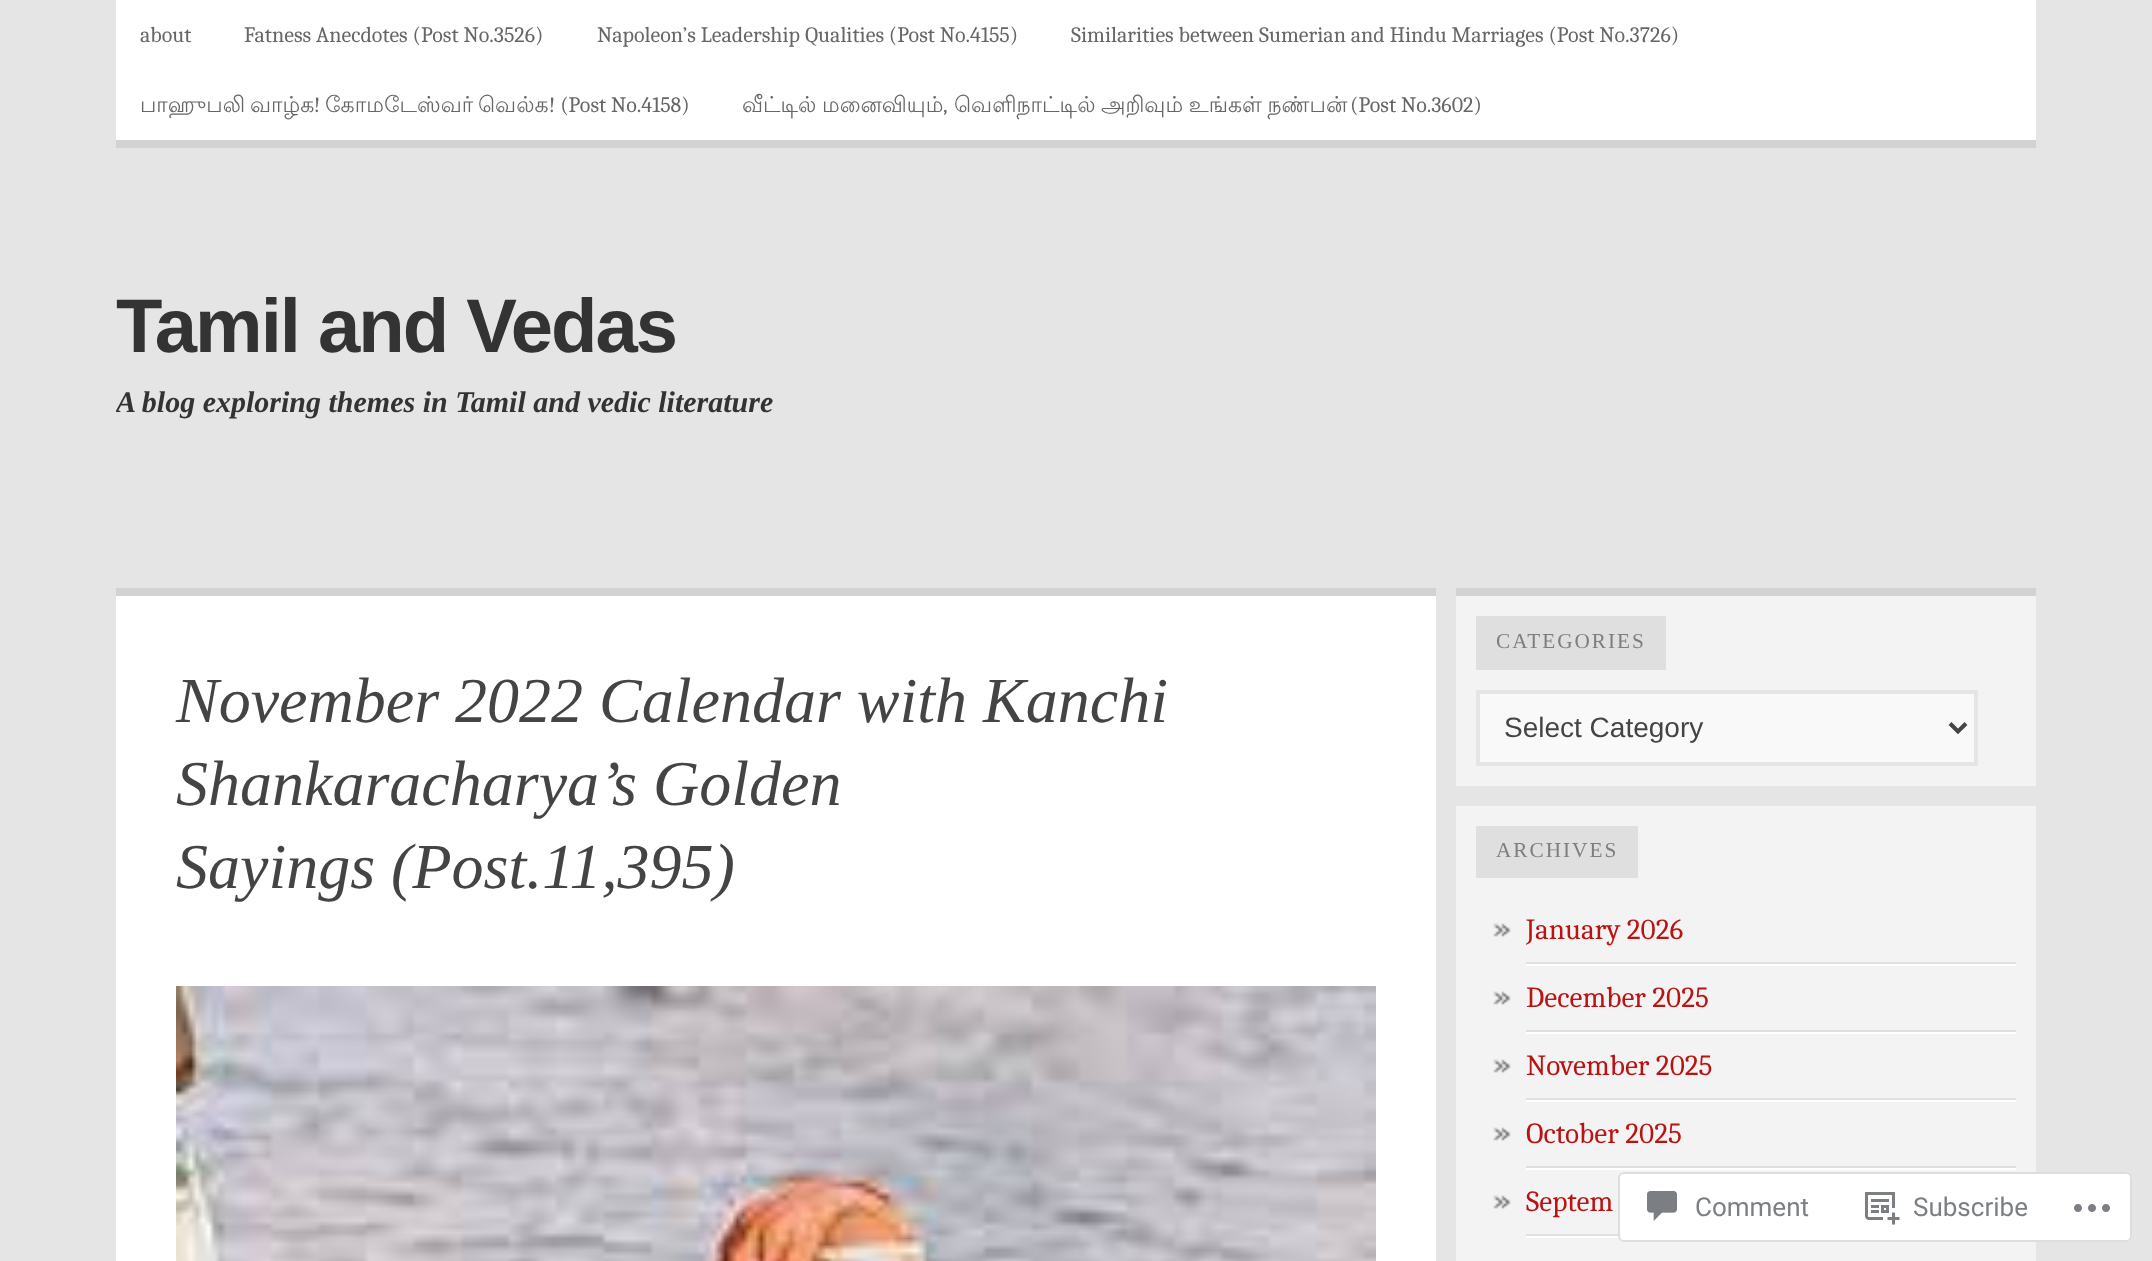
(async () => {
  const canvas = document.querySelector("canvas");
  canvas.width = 2152;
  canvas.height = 1261;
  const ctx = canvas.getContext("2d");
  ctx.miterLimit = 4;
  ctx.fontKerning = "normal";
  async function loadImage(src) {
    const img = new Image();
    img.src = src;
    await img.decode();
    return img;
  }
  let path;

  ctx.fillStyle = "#e5e5e5";
  ctx.fillRect(0, 0, 2152, 1261);
  for (const [x, y, w, h, color] of [
    [116, 0, 1920, 140, "#ffffff"],
    [116, 140, 1920, 8, "#d2d2d2"],
    [116, 596, 1320, 665, "#ffffff"],
    [116, 588, 1320, 8, "#d2d2d2"],
  ]) {
    ctx.fillStyle = color;
    ctx.fillRect(x, y, w, h);
  }
  ctx.drawImage(await loadImage("img/1.png"), 176, 986, 1200, 275);
  for (const [x, y, w, h, color] of [
    [1456, 588, 580, 8, "#d2d2d2"],
    [1456, 596, 580, 190, "#f3f3f3"],
    [1476, 616, 190, 54, "#dfdfdf"],
  ]) {
    ctx.fillStyle = color;
    ctx.fillRect(x, y, w, h);
  }
  ctx.fillStyle = "#f9f9f9";
  ctx.beginPath();
  ctx.rect(1478, 692, 498, 72);
  ctx.fill();
  ctx.strokeStyle = "#e5e5e5";
  ctx.lineWidth = 4;
  ctx.stroke();
  path = new Path2D("M1950 723.5L1958 731.5L1966 723.5");
  ctx.strokeStyle = "#444444";
  ctx.stroke(path);
  for (const [x, y, w, h, color] of [
    [1456, 806, 580, 455, "#f3f3f3"],
    [1476, 826, 162, 52, "#dfdfdf"],
    [1526, 962, 490, 2, "#dfdfdf"],
  ]) {
    ctx.fillStyle = color;
    ctx.fillRect(x, y, w, h);
  }
  ctx.drawImage(await loadImage("img/2.png"), 1493, 923, 18, 14);
  ctx.fillStyle = "#ffffff";
  ctx.fillRect(1526, 964, 490, 2);
  ctx.fillStyle = "#dfdfdf";
  ctx.fillRect(1526, 1030, 490, 2);
  ctx.drawImage(await loadImage("img/2.png"), 1493, 991, 18, 14);
  ctx.fillStyle = "#ffffff";
  ctx.fillRect(1526, 1032, 490, 2);
  ctx.fillStyle = "#dfdfdf";
  ctx.fillRect(1526, 1098, 490, 2);
  ctx.drawImage(await loadImage("img/2.png"), 1493, 1059, 18, 14);
  ctx.fillStyle = "#ffffff";
  ctx.fillRect(1526, 1100, 490, 2);
  ctx.fillStyle = "#dfdfdf";
  ctx.fillRect(1526, 1166, 490, 2);
  ctx.drawImage(await loadImage("img/2.png"), 1493, 1127, 18, 14);
  ctx.fillStyle = "#ffffff";
  ctx.fillRect(1526, 1168, 490, 2);
  ctx.fillStyle = "#dfdfdf";
  ctx.fillRect(1526, 1234, 490, 2);
  ctx.drawImage(await loadImage("img/2.png"), 1493, 1195, 18, 14);
  ctx.fillStyle = "#ffffff";
  ctx.fillRect(1526, 1236, 490, 2);
  ctx.fillStyle = "rgba(255, 255, 255, 0.98)";
  ctx.beginPath();
  ctx.roundRect(1618, 1172, 514, 70, 6);
  ctx.fill();
  ctx.beginPath();
  ctx.roundRect(1619, 1173, 512, 68, 5);
  ctx.strokeStyle = "rgba(220, 220, 222, 0.98)";
  ctx.lineWidth = 2;
  ctx.stroke();
  ctx.drawImage(await loadImage("img/3.png"), 1647, 1191, 30, 30);
  ctx.drawImage(await loadImage("img/4.png"), 1865, 1192, 35, 33);
  ctx.drawImage(await loadImage("img/5.png"), 2074, 1204, 36, 8);
  ctx.font = "22px Caladea";
  ctx.fillStyle = "#666666";
  for (const [text, x, y] of [
    ["about", 140, 42],
    ["Fatness Anecdotes (Post No.3526)", 244, 42],
    ["Napoleon’s Leadership Qualities (Post No.4155)", 597, 42],
    ["Similarities between Sumerian and Hindu Marriages (Post No.3726)", 1071, 42],
  ]) {
    ctx.fillText(text, x, y);
  }
  ctx.font = "22px Lohit Tamil";
  ctx.fillText("பாஹுபலி", 140, 112);
  ctx.fillText("வாழ்க", 250, 112);
  ctx.font = "22px Caladea";
  ctx.fillText("!", 314, 112);
  ctx.font = "22px Lohit Tamil";
  ctx.fillText("கோமடேஸ்வர்", 325, 112);
  ctx.fillText("வெல்க", 478, 112);
  ctx.font = "22px Caladea";
  ctx.fillText("! (Post No.4158)", 549, 112);
  ctx.wordSpacing = "-1px";
  ctx.font = "22px Lohit Tamil";
  ctx.fillText("வீட்டில் மனைவியும்", 742, 112);
  ctx.wordSpacing = "0px";
  ctx.font = "22px Caladea";
  ctx.fillText(",", 943, 112);
  ctx.wordSpacing = "-1px";
  ctx.font = "22px Lohit Tamil";
  ctx.fillText("வெளிநாட்டில் அறிவும் உங்கள் நண்பன்", 954, 112);
  ctx.wordSpacing = "0px";
  ctx.font = "22px Caladea";
  ctx.fillText("(Post No.3602)", 1350, 112);
  ctx.letterSpacing = "-2px";
  ctx.font = "bold 76px Liberation Sans";
  ctx.fillStyle = "#333333";
  ctx.fillText("Tamil and Vedas", 116, 352);
  ctx.save();
  ctx.beginPath();
  ctx.rect(116, 168, 1920, 400);
  ctx.clip();
  ctx.letterSpacing = "0px";
  ctx.font = "italic bold 30px Liberation Serif";
  ctx.fillText("A blog exploring themes in Tamil and vedic literature", 116, 412);
  ctx.restore();
  ctx.letterSpacing = "0px";
  ctx.font = "italic 64px Liberation Serif";
  ctx.fillStyle = "#444444";
  for (const [text, x, y] of [
    ["November 2022 Calendar with Kanchi", 176, 722],
    ["Shankaracharya’s Golden", 176, 805],
    ["Sayings (Post.11,395)", 176, 888],
  ]) {
    ctx.fillText(text, x, y);
  }
  ctx.letterSpacing = "2px";
  ctx.font = "21.25px Liberation Serif";
  ctx.fillStyle = "#7e7e7e";
  ctx.fillText("CATEGORIES", 1496, 648);
  ctx.letterSpacing = "0px";
  ctx.font = "28px Liberation Sans";
  ctx.fillStyle = "#444444";
  ctx.fillText("Select Category", 1504, 737);
  ctx.letterSpacing = "2px";
  ctx.font = "21.25px Liberation Serif";
  ctx.fillStyle = "#7e7e7e";
  ctx.fillText("ARCHIVES", 1496, 857);
  ctx.letterSpacing = "0px";
  ctx.font = "29.25px Caladea";
  ctx.fillStyle = "#b91313";
  for (const [text, x, y] of [
    ["January 2026", 1526, 939],
    ["December 2025", 1526, 1007],
    ["November 2025", 1526, 1075],
    ["October 2025", 1526, 1143],
    ["Septem", 1526, 1211],
  ]) {
    ctx.fillText(text, x, y);
  }
  ctx.font = "26px Roboto";
  ctx.fillStyle = "#7b7f84";
  ctx.fillText("Comment", 1695, 1216);
  ctx.fillText("Subscribe", 1913, 1216);
})();
